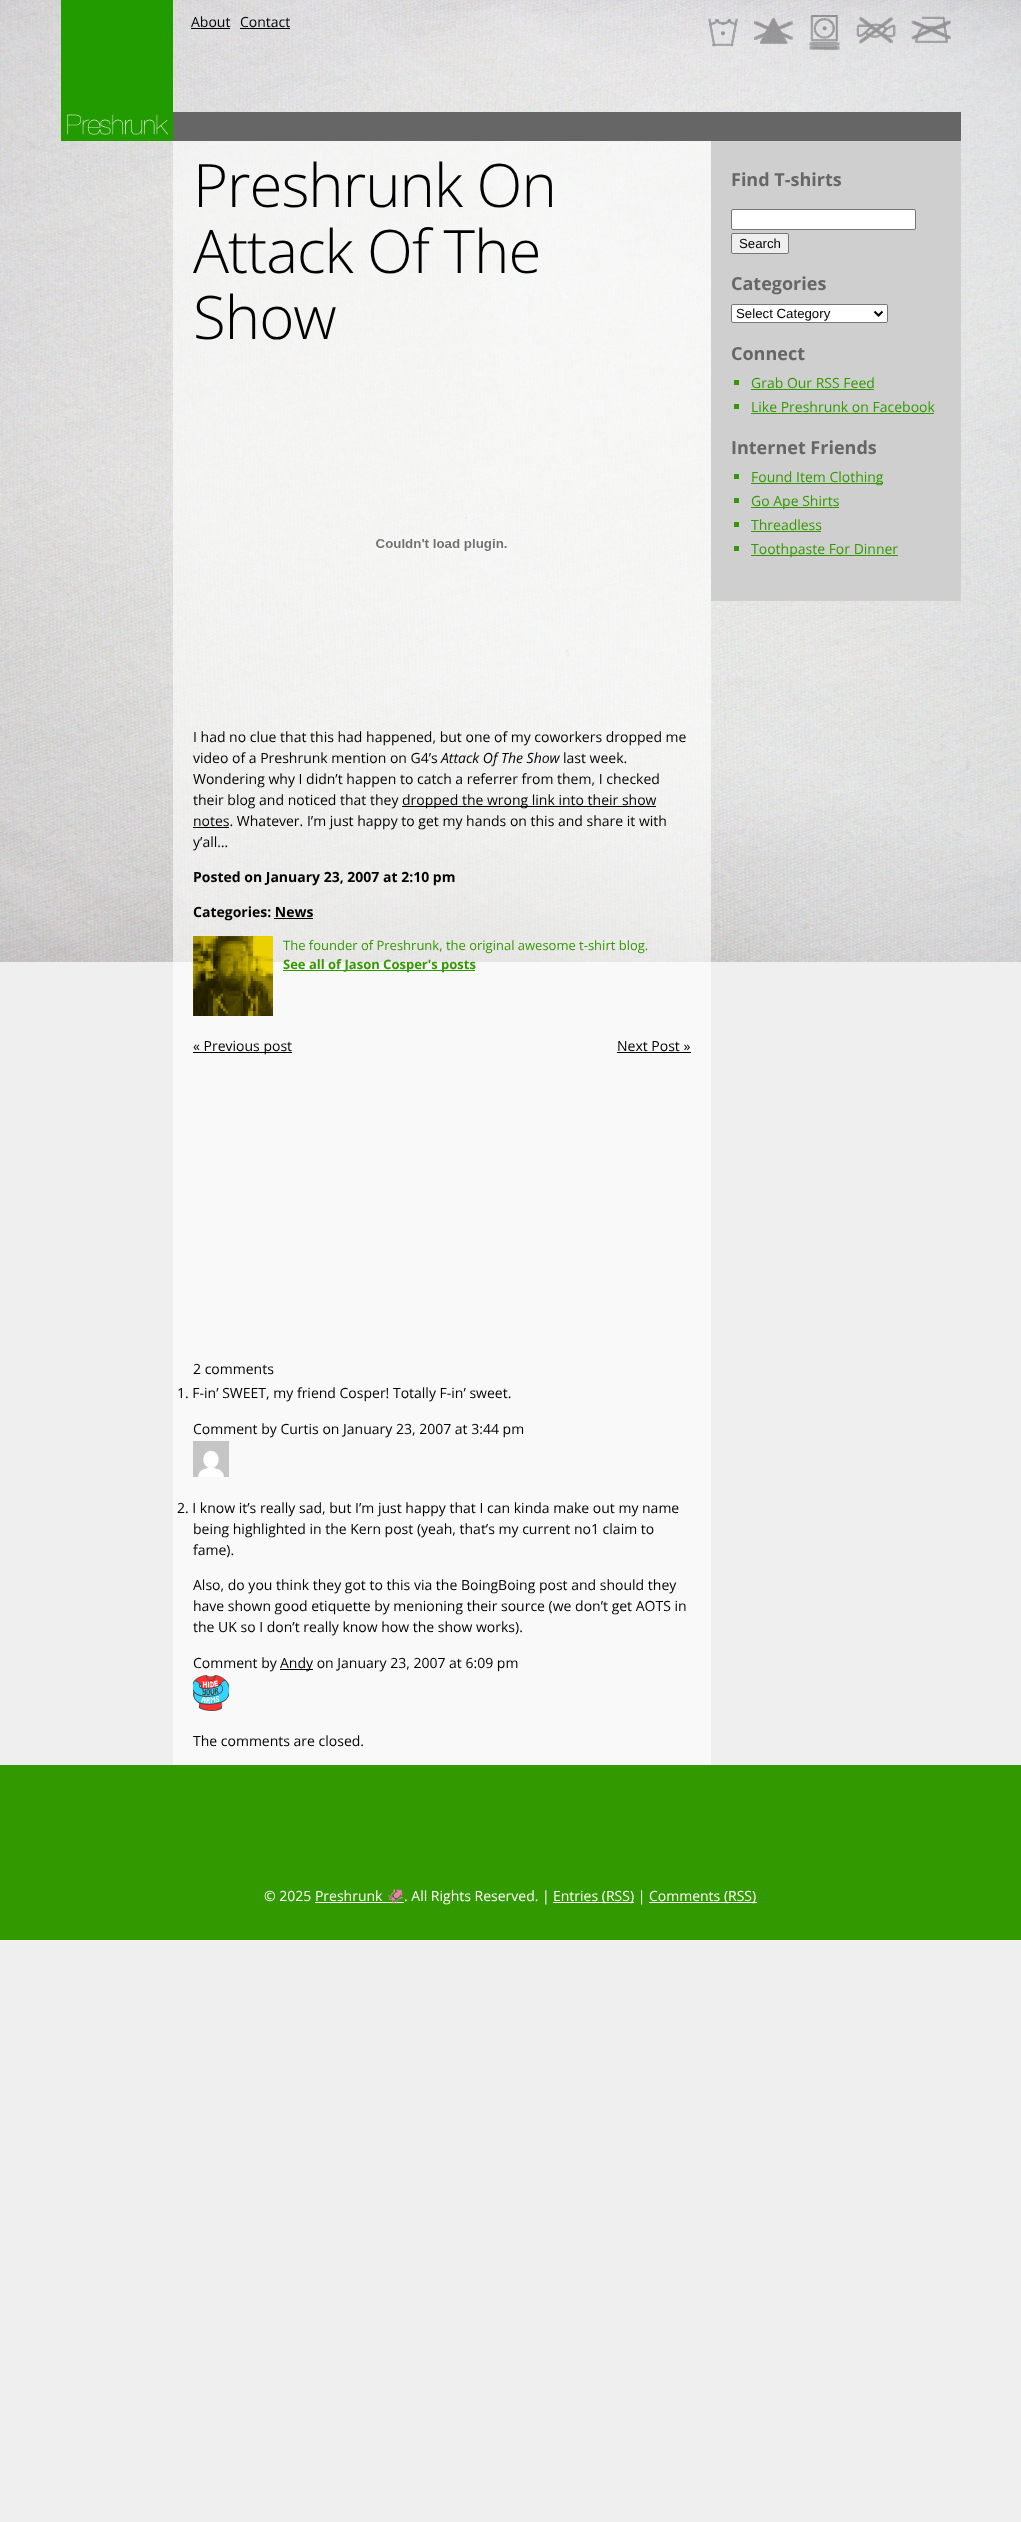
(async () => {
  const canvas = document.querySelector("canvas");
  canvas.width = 1021;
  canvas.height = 2522;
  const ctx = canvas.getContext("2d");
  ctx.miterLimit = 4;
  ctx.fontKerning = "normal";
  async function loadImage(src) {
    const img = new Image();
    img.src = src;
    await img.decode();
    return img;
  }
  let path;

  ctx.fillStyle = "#efefef";
  ctx.fillRect(0, 0, 1021, 2522);
  ctx.drawImage(await loadImage("img/1.png"), 0, 0, 1021, 962);
  ctx.drawImage(await loadImage("img/2.png"), 61, 0, 112, 141);
  ctx.fillStyle = "#000000";
  ctx.fillRect(191, 28, 39, 1);
  ctx.fillRect(240, 28, 50, 1);
  ctx.drawImage(await loadImage("img/3.png"), 708, 15, 243, 35);
  ctx.fillStyle = "#666666";
  ctx.fillRect(173, 112, 788, 29);
  ctx.fillStyle = "rgba(255, 255, 255, 0.6)";
  ctx.fillRect(173, 141, 538, 1624);
  ctx.drawImage(await loadImage("img/4.png"), 376, 539, 131, 12);
  for (const [x, y, w, h, color] of [
    [402, 806, 254, 1, "#000000"],
    [193, 827, 36, 1, "#000000"],
    [274, 918, 39, 1, "#000000"],
  ]) {
    ctx.fillStyle = color;
    ctx.fillRect(x, y, w, h);
  }
  ctx.drawImage(await loadImage("img/5.png"), 193, 936, 80, 80);
  for (const [x, y, w, h, color] of [
    [283, 970, 192, 1, "#339900"],
    [193, 1052, 99, 1, "#000000"],
    [617, 1052, 74, 1, "#000000"],
  ]) {
    ctx.fillStyle = color;
    ctx.fillRect(x, y, w, h);
  }
  ctx.drawImage(await loadImage("img/6.png"), 193, 1441, 36, 36);
  ctx.fillRect(280, 1669, 33, 1);
  ctx.drawImage(await loadImage("img/7.png"), 193, 1675, 36, 36);
  ctx.fillStyle = "#d0cfd0";
  ctx.fillRect(711, 141, 250, 460);
  ctx.fillStyle = "#ffffff";
  ctx.beginPath();
  ctx.roundRect(731.5, 209.5, 184, 20, 1.5);
  ctx.fill();
  ctx.strokeStyle = "#767676";
  ctx.stroke();
  ctx.fillStyle = "#efefef";
  ctx.beginPath();
  ctx.roundRect(731.5, 233.5, 57, 20, 1.5);
  ctx.fill();
  ctx.stroke();
  ctx.fillStyle = "#ffffff";
  ctx.beginPath();
  ctx.roundRect(731.5, 304.5, 156, 18, 1.5);
  ctx.fill();
  ctx.stroke();
  path = new Path2D("M874.5 311.5L878.5 315.5L882.5 311.5");
  ctx.strokeStyle = "#000000";
  ctx.lineWidth = 2;
  ctx.stroke(path);
  for (const [x, y, w, h, color] of [
    [734, 380, 5, 5, "#339900"],
    [751, 389, 123, 1, "#339900"],
    [734, 404, 5, 5, "#339900"],
    [751, 413, 183, 1, "#339900"],
    [734, 474, 5, 5, "#339900"],
    [751, 483, 132, 1, "#339900"],
    [734, 498, 5, 5, "#339900"],
    [751, 507, 88, 1, "#339900"],
    [734, 522, 5, 5, "#339900"],
    [751, 531, 70, 1, "#339900"],
    [734, 546, 5, 5, "#339900"],
    [751, 555, 147, 1, "#339900"],
    [0, 1765, 1021, 175, "#339900"],
    [315, 1902, 89, 1, "#ffffff"],
    [553, 1902, 81, 1, "#ffffff"],
    [649, 1902, 108, 1, "#ffffff"],
  ]) {
    ctx.fillStyle = color;
    ctx.fillRect(x, y, w, h);
  }
  ctx.font = "14px Open Sans";
  ctx.fillStyle = "#000000";
  ctx.fillText("About", 191, 27);
  ctx.fillText("Contact", 240, 27);
  ctx.letterSpacing = "-1px";
  ctx.font = "300 60px Open Sans";
  for (const [text, x, y] of [
    ["Preshrunk On", 193, 207],
    ["Attack Of The", 193, 273],
    ["Show", 193, 339],
  ]) {
    ctx.fillText(text, x, y);
  }
  ctx.letterSpacing = "0px";
  ctx.font = "14px Open Sans";
  ctx.fillText("I had no clue that this had happened, but one of my coworkers dropped me", 193, 742);
  ctx.fillText("video of a Preshrunk mention on G4’s", 193, 763);
  ctx.font = "italic 14px Open Sans";
  ctx.fillText("Attack Of The Show", 441, 763);
  ctx.font = "14px Open Sans";
  for (const [text, x, y] of [
    ["last week.", 563, 763],
    ["Wondering why I didn’t happen to catch a referrer from them, I checked", 193, 784],
    ["their blog and noticed that they", 193, 805],
    ["dropped the wrong link into their show", 402, 805],
    ["notes. Whatever. I’m just happy to get my hands on this and share it with", 193, 826],
    ["y’all…", 193, 847],
  ]) {
    ctx.fillText(text, x, y);
  }
  ctx.font = "bold 14px Open Sans";
  ctx.fillText("Posted on January 23, 2007 at 2:10 pm", 193, 882);
  ctx.fillText("Categories: News", 193, 917);
  ctx.font = "13px Open Sans";
  ctx.fillStyle = "#339900";
  ctx.fillText("The founder of Preshrunk, the original awesome t-shirt blog.", 283, 950);
  ctx.font = "bold 13px Open Sans";
  ctx.fillText("See all of Jason Cosper's posts", 283, 969);
  ctx.font = "14px Open Sans";
  ctx.fillStyle = "#000000";
  for (const [text, x, y] of [
    ["« Previous post", 193, 1051],
    ["Next Post »", 617, 1051],
    ["2 comments", 193, 1374],
    ["1. F-in’ SWEET, my friend Cosper! Totally F-in’ sweet.", 177, 1398],
    ["Comment by Curtis on January 23, 2007 at 3:44 pm", 193, 1434],
    ["2. I know it’s really sad, but I’m just happy that I can kinda make out my name", 177, 1513],
    ["being highlighted in the Kern post (yeah, that’s my current no1 claim to", 193, 1534],
    ["fame).", 193, 1555],
    ["Also, do you think they got to this via the BoingBoing post and should they", 193, 1590],
    ["have shown good etiquette by menioning their source (we don’t get AOTS in", 193, 1611],
    ["the UK so I don’t really know how the show works).", 193, 1632],
    ["Comment by", 193, 1668],
    ["Andy on January 23, 2007 at 6:09 pm", 280, 1668],
    ["The comments are closed.", 193, 1746],
  ]) {
    ctx.fillText(text, x, y);
  }
  ctx.font = "bold 18px Open Sans";
  ctx.fillStyle = "#666666";
  ctx.fillText("Find T-shirts", 731, 186);
  ctx.font = "13.25px Liberation Sans";
  ctx.fillStyle = "#000000";
  ctx.fillText("Search", 739, 248);
  ctx.font = "bold 18px Open Sans";
  ctx.fillStyle = "#666666";
  ctx.fillText("Categories", 731, 290);
  ctx.font = "13.25px Liberation Sans";
  ctx.fillStyle = "#000000";
  ctx.fillText("Select Category", 736, 318);
  ctx.font = "bold 18px Open Sans";
  ctx.fillStyle = "#666666";
  ctx.fillText("Connect", 731, 360);
  ctx.font = "14px Open Sans";
  ctx.fillStyle = "#339900";
  ctx.fillText("Grab Our RSS Feed", 751, 388);
  ctx.fillText("Like Preshrunk on Facebook", 751, 412);
  ctx.font = "bold 18px Open Sans";
  ctx.fillStyle = "#666666";
  ctx.fillText("Internet Friends", 731, 454);
  ctx.font = "14px Open Sans";
  ctx.fillStyle = "#339900";
  for (const [text, x, y] of [
    ["Found Item Clothing", 751, 482],
    ["Go Ape Shirts", 751, 506],
    ["Threadless", 751, 530],
    ["Toothpaste For Dinner", 751, 554],
  ]) {
    ctx.fillText(text, x, y);
  }
  ctx.fillStyle = "#ffffff";
  ctx.fillText("© 2025 Preshrunk", 264, 1901);
  ctx.font = "14px Noto Color Emoji";
  ctx.fillText("🦑", 387, 1901);
  ctx.font = "14px Open Sans";
  for (const [text, x, y] of [
    [". All Rights Reserved. |", 404, 1901],
    ["Entries (RSS) |", 553, 1901],
    ["Comments (RSS)", 649, 1901],
  ]) {
    ctx.fillText(text, x, y);
  }
})();
